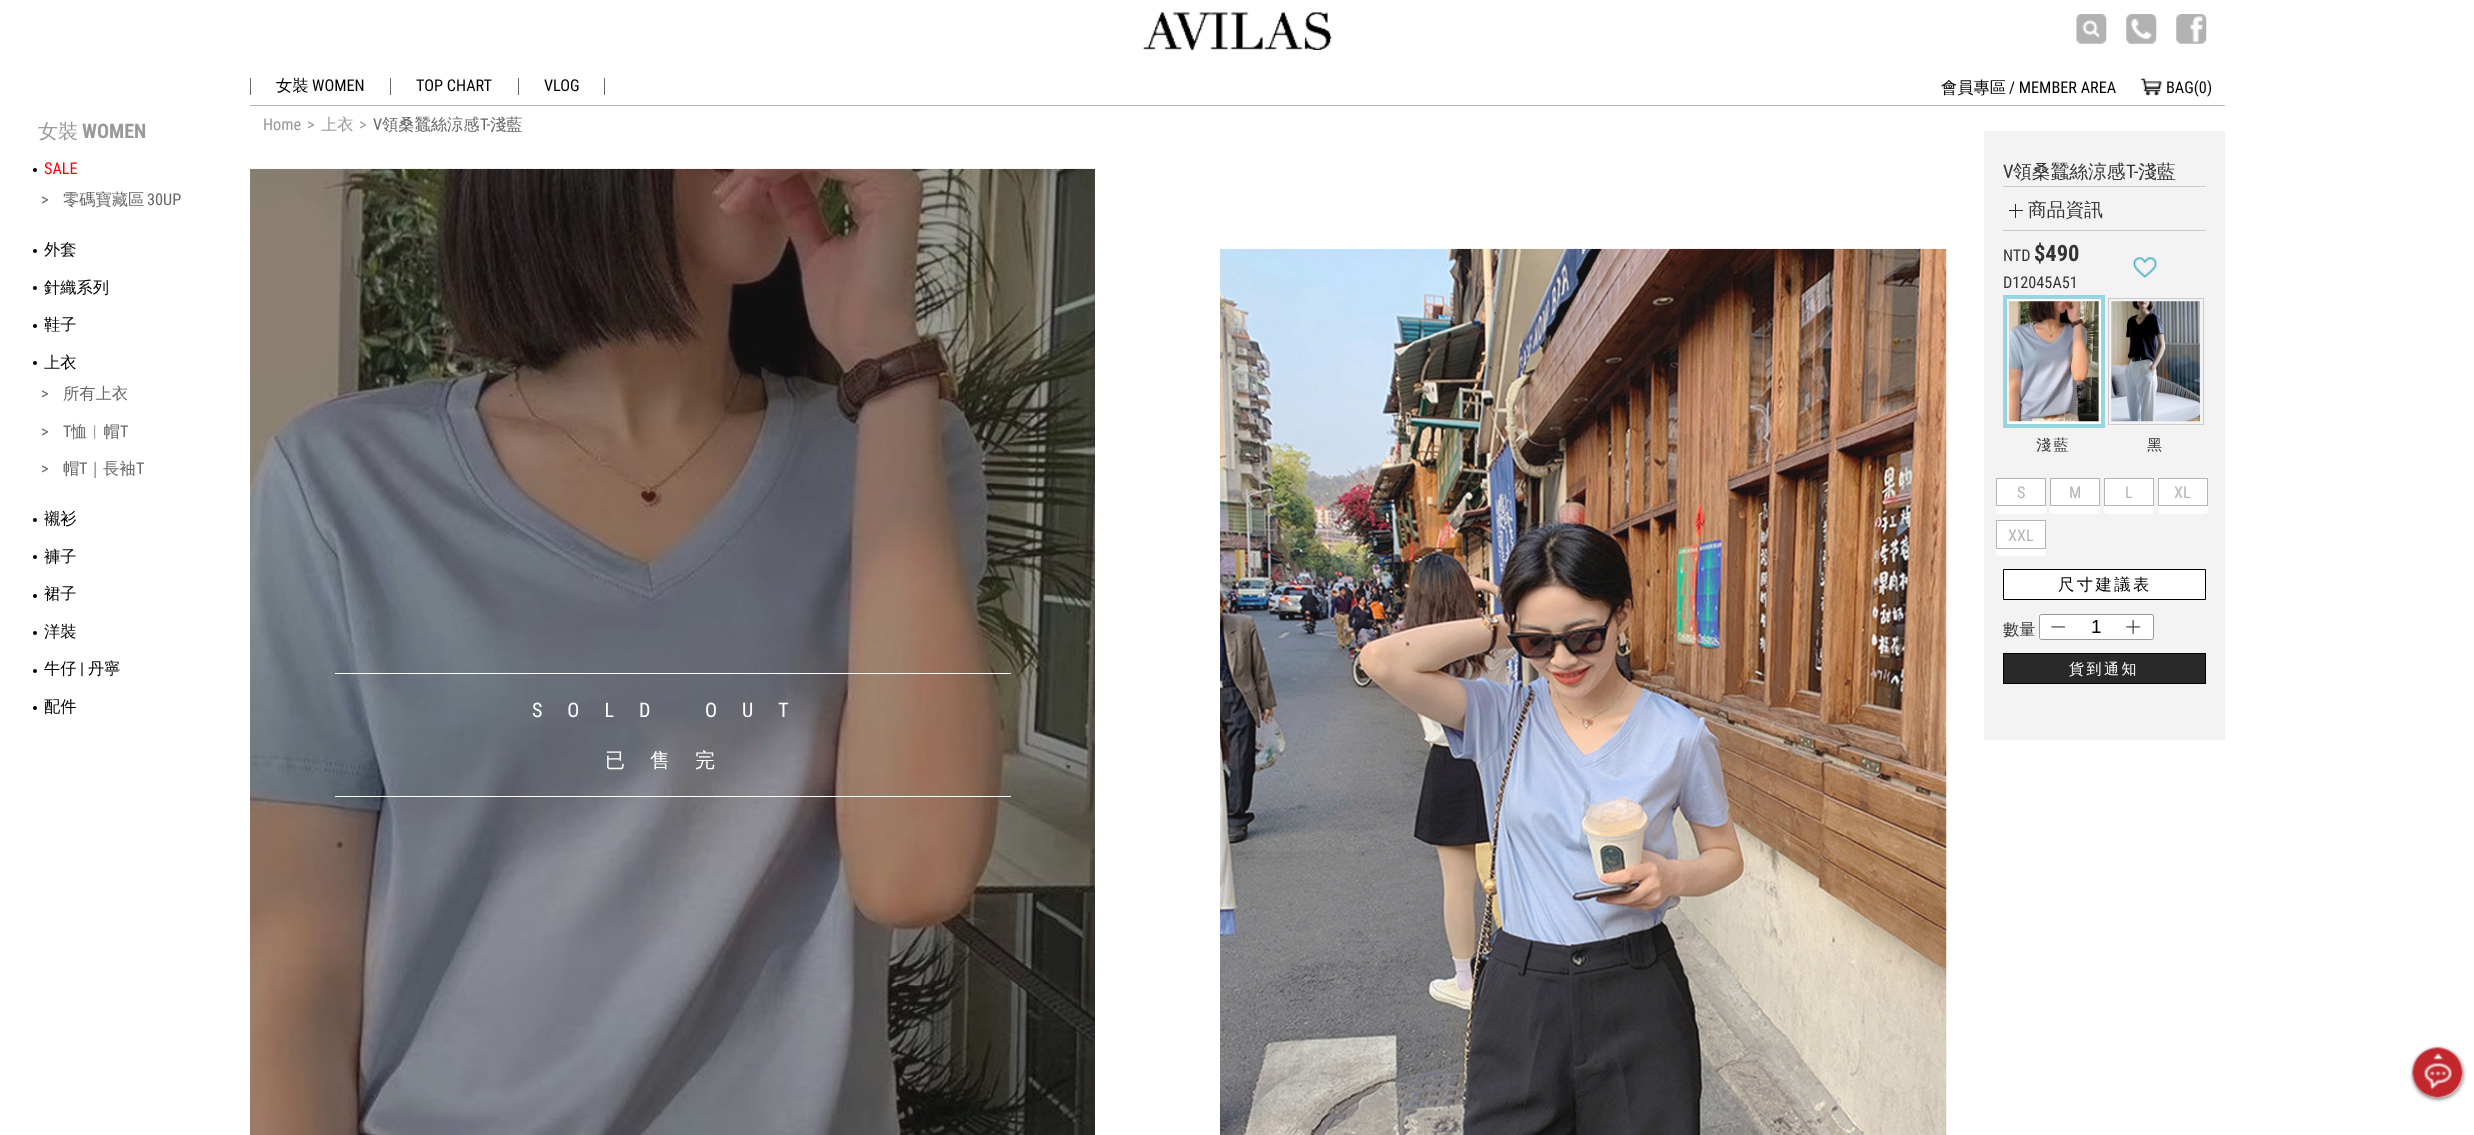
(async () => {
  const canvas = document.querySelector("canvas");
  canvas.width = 2474;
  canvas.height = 1135;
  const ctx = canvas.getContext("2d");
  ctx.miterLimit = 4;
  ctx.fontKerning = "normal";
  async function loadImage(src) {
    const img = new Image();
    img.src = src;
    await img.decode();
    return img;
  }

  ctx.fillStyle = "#ffffff";
  ctx.fillRect(0, 0, 2474, 1135);
  ctx.fillStyle = "#b6b6b6";
  ctx.fillRect(250, 105, 1975, 1);
  ctx.drawImage(await loadImage("img/1.png"), 1143, 12, 189, 38);
  for (const [x, y, w, h, color] of [
    [250, 78, 1, 17, "#666666"],
    [390, 78, 1, 17, "#666666"],
    [604, 78, 1, 17, "#666666"],
    [518, 78, 1, 17, "#666666"],
  ]) {
    ctx.fillStyle = color;
    ctx.fillRect(x, y, w, h);
  }
  ctx.drawImage(await loadImage("img/2.png"), 2076, 14, 31, 30);
  ctx.drawImage(await loadImage("img/3.png"), 2126, 14, 31, 30);
  ctx.drawImage(await loadImage("img/4.png"), 2176, 14, 31, 30);
  ctx.drawImage(await loadImage("img/5.png"), 2141, 78, 21, 18);
  ctx.fillStyle = "#000000";
  ctx.beginPath();
  ctx.arc(35, 170, 2, 0, Math.PI * 2);
  ctx.fill();
  ctx.beginPath();
  ctx.arc(35, 251, 2, 0, Math.PI * 2);
  ctx.fill();
  ctx.beginPath();
  ctx.arc(35, 288, 2, 0, Math.PI * 2);
  ctx.fill();
  ctx.beginPath();
  ctx.arc(35, 326, 2, 0, Math.PI * 2);
  ctx.fill();
  ctx.beginPath();
  ctx.arc(35, 363, 2, 0, Math.PI * 2);
  ctx.fill();
  ctx.beginPath();
  ctx.arc(35, 520, 2, 0, Math.PI * 2);
  ctx.fill();
  ctx.beginPath();
  ctx.arc(35, 557, 2, 0, Math.PI * 2);
  ctx.fill();
  ctx.beginPath();
  ctx.arc(35, 596, 2, 0, Math.PI * 2);
  ctx.fill();
  ctx.beginPath();
  ctx.arc(35, 633, 2, 0, Math.PI * 2);
  ctx.fill();
  ctx.beginPath();
  ctx.arc(35, 671, 2, 0, Math.PI * 2);
  ctx.fill();
  ctx.beginPath();
  ctx.arc(35, 708, 2, 0, Math.PI * 2);
  ctx.fill();
  for (const [x, y, w, h, color] of [
    [1984, 131, 241, 609, "#f3f3f3"],
    [2003, 186, 203, 1, "#cccccc"],
    [2003, 230, 203, 1, "#cccccc"],
    [2009, 210, 14, 1, "#292929"],
    [2015, 204, 1, 14, "#292929"],
  ]) {
    ctx.fillStyle = color;
    ctx.fillRect(x, y, w, h);
  }
  ctx.drawImage(await loadImage("img/6.png"), 2133, 257, 24, 21);
  ctx.fillStyle = "#ffffff";
  ctx.fillRect(2007, 299, 94, 125);
  ctx.drawImage(await loadImage("img/7.png"), 2008, 301, 91, 121);
  ctx.strokeStyle = "#97d5e1";
  ctx.lineWidth = 4;
  ctx.strokeRect(2005, 297, 98, 129);
  ctx.drawImage(await loadImage("img/8.png"), 2111, 301, 89, 121);
  ctx.strokeStyle = "#cccccc";
  ctx.lineWidth = 1;
  ctx.strokeRect(2108.5, 298.5, 95, 126);
  ctx.beginPath();
  ctx.roundRect(1996, 478, 50, 36, 4);
  ctx.fill();
  ctx.strokeStyle = "#b5b5b6";
  ctx.strokeRect(1996.5, 478.5, 49, 27);
  ctx.beginPath();
  ctx.roundRect(2050, 478, 50, 36, 4);
  ctx.fill();
  ctx.strokeRect(2050.5, 478.5, 49, 27);
  ctx.beginPath();
  ctx.roundRect(2104, 478, 50, 36, 4);
  ctx.fill();
  ctx.strokeRect(2104.5, 478.5, 49, 27);
  ctx.beginPath();
  ctx.roundRect(2158, 478, 50, 36, 4);
  ctx.fill();
  ctx.strokeRect(2158.5, 478.5, 49, 27);
  ctx.beginPath();
  ctx.roundRect(1996, 520, 50, 36, 4);
  ctx.fill();
  ctx.strokeRect(1996.5, 520.5, 49, 28);
  ctx.beginPath();
  ctx.rect(2003.5, 569.5, 202, 30);
  ctx.fill();
  ctx.strokeStyle = "#000000";
  ctx.stroke();
  ctx.beginPath();
  ctx.roundRect(2039.5, 614.5, 114, 25, 2);
  ctx.fill();
  ctx.strokeStyle = "#999999";
  ctx.stroke();
  ctx.drawImage(await loadImage("img/9.png"), 2051, 626, 15, 2);
  ctx.drawImage(await loadImage("img/10.png"), 2126, 619, 15, 15);
  ctx.strokeStyle = "#000000";
  ctx.strokeRect(2003.5, 653.5, 202, 30);
  ctx.fillStyle = "#292929";
  ctx.fillRect(2004, 654, 201, 29);
  ctx.drawImage(await loadImage("img/11.png"), 250, 168, 845, 967);
  ctx.fillStyle = "#ffffff";
  ctx.fillRect(335, 673, 676, 1);
  ctx.fillRect(335, 796, 676, 1);
  ctx.drawImage(await loadImage("img/12.png"), 1220, 248, 727, 887);
  ctx.fillStyle = "rgba(0, 0, 0, 0.6)";
  ctx.filter = "blur(2px)";
  ctx.beginPath();
  ctx.roundRect(2413, 1049, 50, 50, 25);
  ctx.fill();
  ctx.filter = "none";
  ctx.fillStyle = "#efefef";
  ctx.beginPath();
  ctx.arc(2438, 1073, 25, 0, Math.PI * 2);
  ctx.fill();
  ctx.drawImage(await loadImage("img/13.png"), 2412, 1047, 51, 51);
  ctx.font = "500 16.25px WenQuanYi Zen Hei";
  ctx.fillStyle = "#000000";
  ctx.fillText("女裝", 276, 91);
  ctx.font = "16.25px Roboto Condensed";
  for (const [text, x, y] of [
    ["WOMEN", 312, 91],
    ["TOP CHART", 416, 91],
    ["VLOG", 544, 91],
  ]) {
    ctx.fillText(text, x, y);
  }
  ctx.font = "500 16.25px WenQuanYi Zen Hei";
  ctx.fillText("會員專區", 1941, 93);
  ctx.font = "16.25px Roboto Condensed";
  ctx.fillText("/ MEMBER AREA", 2009, 93);
  ctx.fillText("BAG(0)", 2166, 93);
  ctx.font = "500 20px WenQuanYi Zen Hei";
  ctx.fillStyle = "#999999";
  ctx.fillText("女裝", 38, 138);
  ctx.font = "bold 20px Roboto Condensed";
  ctx.fillText("WOMEN", 82, 138);
  ctx.font = "16.25px Roboto Condensed";
  ctx.fillStyle = "#ff0000";
  ctx.fillText("SALE", 44, 174);
  ctx.fillStyle = "#666666";
  ctx.fillText(">", 41, 205);
  ctx.font = "500 16.25px WenQuanYi Zen Hei";
  ctx.fillText("零碼寶藏區", 63, 205);
  ctx.font = "16.25px Roboto Condensed";
  ctx.fillText("30UP", 147, 205);
  ctx.font = "500 16.25px WenQuanYi Zen Hei";
  ctx.fillStyle = "#000000";
  for (const [text, x, y] of [
    ["外套", 44, 255],
    ["針織系列", 44, 293],
    ["鞋子", 44, 330],
    ["上衣", 44, 368],
  ]) {
    ctx.fillText(text, x, y);
  }
  ctx.font = "16.25px Roboto Condensed";
  ctx.fillStyle = "#666666";
  ctx.fillText(">", 41, 399);
  ctx.font = "500 16.25px WenQuanYi Zen Hei";
  ctx.fillText("所有上衣", 63, 399);
  ctx.font = "16.25px Roboto Condensed";
  ctx.fillText(">", 41, 437);
  ctx.fillText("T", 63, 437);
  ctx.font = "500 16.25px WenQuanYi Zen Hei";
  ctx.fillText("恤︱帽", 71, 437);
  ctx.font = "16.25px Roboto Condensed";
  ctx.fillText("T", 120, 437);
  ctx.fillText(">", 41, 474);
  ctx.font = "500 16.25px WenQuanYi Zen Hei";
  ctx.fillText("帽", 63, 474);
  ctx.font = "16.25px Roboto Condensed";
  ctx.fillText("T", 79, 474);
  ctx.font = "500 16.25px WenQuanYi Zen Hei";
  ctx.fillText("｜長袖", 87, 474);
  ctx.font = "16.25px Roboto Condensed";
  ctx.fillText("T", 136, 474);
  ctx.font = "500 16.25px WenQuanYi Zen Hei";
  ctx.fillStyle = "#000000";
  for (const [text, x, y] of [
    ["襯衫", 44, 524],
    ["褲子", 44, 562],
    ["裙子", 44, 599],
    ["洋裝", 44, 637],
    ["牛仔", 44, 674],
  ]) {
    ctx.fillText(text, x, y);
  }
  ctx.font = "16.25px Roboto Condensed";
  ctx.fillText("|", 80, 674);
  ctx.font = "500 16.25px WenQuanYi Zen Hei";
  ctx.fillText("丹寧", 88, 674);
  ctx.fillText("配件", 44, 712);
  ctx.font = "16.25px Roboto Condensed";
  ctx.fillStyle = "#999999";
  ctx.fillText("Home", 263, 130);
  ctx.fillText(">", 307, 130);
  ctx.font = "500 16.25px WenQuanYi Zen Hei";
  ctx.fillText("上衣", 321, 130);
  ctx.font = "16.25px Roboto Condensed";
  ctx.fillText(">", 359, 130);
  ctx.fillStyle = "#666666";
  ctx.fillText("V", 373, 130);
  ctx.font = "500 16.25px WenQuanYi Zen Hei";
  ctx.fillText("領桑蠶絲涼感", 382, 130);
  ctx.font = "16.25px Roboto Condensed";
  ctx.fillText("T-", 480, 130);
  ctx.font = "500 16.25px WenQuanYi Zen Hei";
  ctx.fillText("淺藍", 490, 130);
  ctx.font = "18.75px Roboto Condensed";
  ctx.fillStyle = "#333333";
  ctx.fillText("V", 2003, 178);
  ctx.font = "500 18.75px WenQuanYi Zen Hei";
  ctx.fillText("領桑蠶絲涼感", 2013, 178);
  ctx.font = "18.75px Roboto Condensed";
  ctx.fillText("T-", 2126, 178);
  ctx.font = "500 18.75px WenQuanYi Zen Hei";
  ctx.fillText("淺藍", 2138, 178);
  ctx.fillText("商品資訊", 2028, 216);
  ctx.font = "16.25px Roboto Condensed";
  ctx.fillText("NTD", 2003, 261);
  ctx.font = "bold 22.5px Roboto Condensed";
  ctx.fillText("$490", 2034, 261);
  ctx.font = "16.25px Roboto Condensed";
  ctx.fillText("D12045A51", 2003, 288);
  ctx.letterSpacing = "2.5px";
  ctx.font = "500 15px WenQuanYi Zen Hei";
  ctx.fillText("淺藍", 2036, 450);
  ctx.fillText("黑", 2147, 450);
  ctx.letterSpacing = "0px";
  ctx.font = "16.25px Roboto Condensed";
  ctx.fillStyle = "#b5b5b6";
  for (const [text, x, y] of [
    ["S", 2017, 498],
    ["M", 2069, 498],
    ["L", 2125, 498],
    ["XL", 2174, 498],
    ["XXL", 2008, 541],
  ]) {
    ctx.fillText(text, x, y);
  }
  ctx.letterSpacing = "2.5px";
  ctx.font = "500 16.25px WenQuanYi Zen Hei";
  ctx.fillStyle = "#000000";
  ctx.fillText("尺寸建議表", 2058, 590);
  ctx.letterSpacing = "0px";
  ctx.fillStyle = "#333333";
  ctx.fillText("數量", 2003, 635);
  ctx.font = "18.75px Liberation Sans";
  ctx.fillStyle = "#000000";
  ctx.fillText("1", 2091, 633);
  ctx.letterSpacing = "2.5px";
  ctx.font = "500 15px WenQuanYi Zen Hei";
  ctx.fillStyle = "#ffffff";
  ctx.fillText("貨到通知", 2069, 674);
  ctx.letterSpacing = "25px";
  ctx.font = "20px Roboto Condensed";
  ctx.fillText("SOLD OUT", 532, 717);
  ctx.font = "500 20px WenQuanYi Zen Hei";
  ctx.fillText("已售完", 605, 767);
})();
